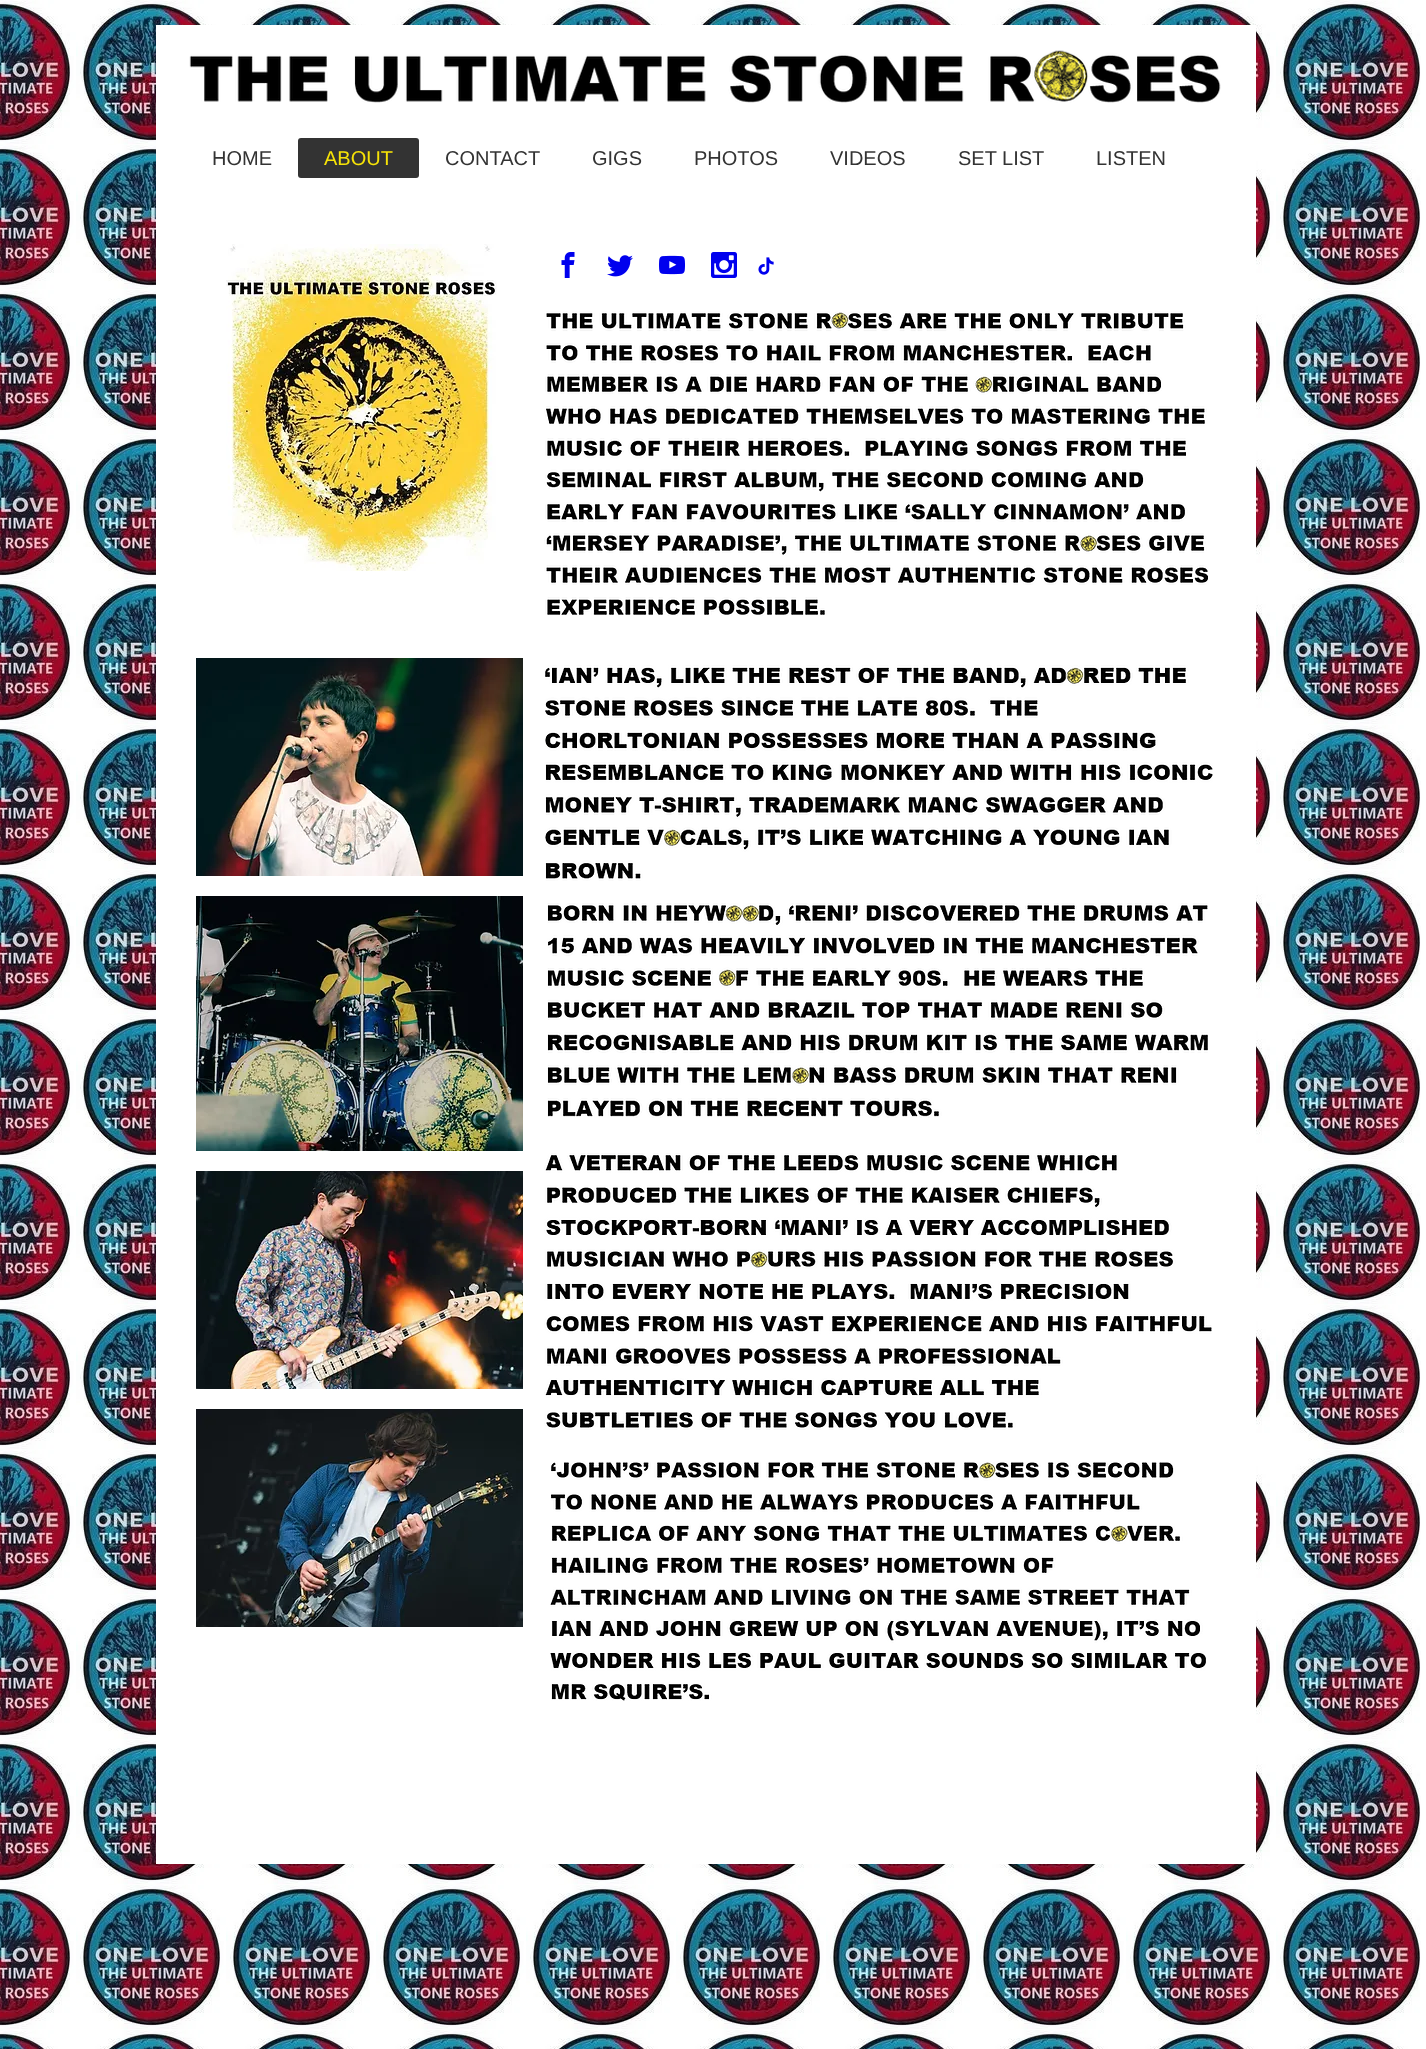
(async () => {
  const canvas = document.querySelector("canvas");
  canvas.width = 1426;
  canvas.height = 2049;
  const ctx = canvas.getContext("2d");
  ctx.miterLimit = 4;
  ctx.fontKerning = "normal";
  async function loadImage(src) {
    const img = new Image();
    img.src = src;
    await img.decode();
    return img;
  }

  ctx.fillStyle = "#ffffff";
  ctx.fillRect(0, 0, 1426, 2049);
  ctx.drawImage(await loadImage("img/1.png"), 0, 0, 1421, 2049);
  ctx.fillRect(156, 25, 1100, 169);
  ctx.drawImage(await loadImage("img/2.png"), 189, 50, 1032, 53);
  ctx.fillStyle = "#333333";
  ctx.beginPath();
  ctx.roundRect(298, 138, 121, 40, 3);
  ctx.fill();
  ctx.fillStyle = "#ffffff";
  ctx.fillRect(156, 194, 1100, 1670);
  ctx.drawImage(await loadImage("img/3.png"), 226, 244, 271, 327);
  ctx.drawImage(await loadImage("img/4.png"), 561, 252, 14, 26);
  ctx.drawImage(await loadImage("img/5.png"), 607, 255, 26, 22);
  ctx.drawImage(await loadImage("img/6.png"), 659, 255, 26, 20);
  ctx.drawImage(await loadImage("img/7.png"), 711, 252, 26, 26);
  ctx.drawImage(await loadImage("img/8.png"), 758, 257, 16, 18);
  ctx.drawImage(await loadImage("img/9.png"), 544, 311, 664, 305);
  ctx.drawImage(await loadImage("img/10.png"), 196, 658, 327, 218);
  ctx.drawImage(await loadImage("img/11.png"), 196, 896, 327, 255);
  ctx.drawImage(await loadImage("img/12.png"), 196, 1171, 327, 218);
  ctx.drawImage(await loadImage("img/13.png"), 196, 1409, 327, 218);
  ctx.drawImage(await loadImage("img/14.png"), 545, 665, 668, 216);
  ctx.drawImage(await loadImage("img/15.png"), 547, 903, 661, 215);
  ctx.drawImage(await loadImage("img/16.png"), 544, 1153, 668, 277);
  ctx.drawImage(await loadImage("img/17.png"), 550, 1461, 656, 240);
  ctx.font = "20px Liberation Sans";
  ctx.fillStyle = "#333333";
  ctx.fillText("HOME", 212, 165);
  ctx.fillStyle = "#f7e307";
  ctx.fillText("ABOUT", 324, 165);
  ctx.fillStyle = "#333333";
  for (const [text, x, y] of [
    ["CONTACT", 445, 165],
    ["GIGS", 592, 165],
    ["PHOTOS", 694, 165],
    ["VIDEOS", 830, 165],
    ["SET LIST", 958, 165],
    ["LISTEN", 1096, 165],
  ]) {
    ctx.fillText(text, x, y);
  }
})();
